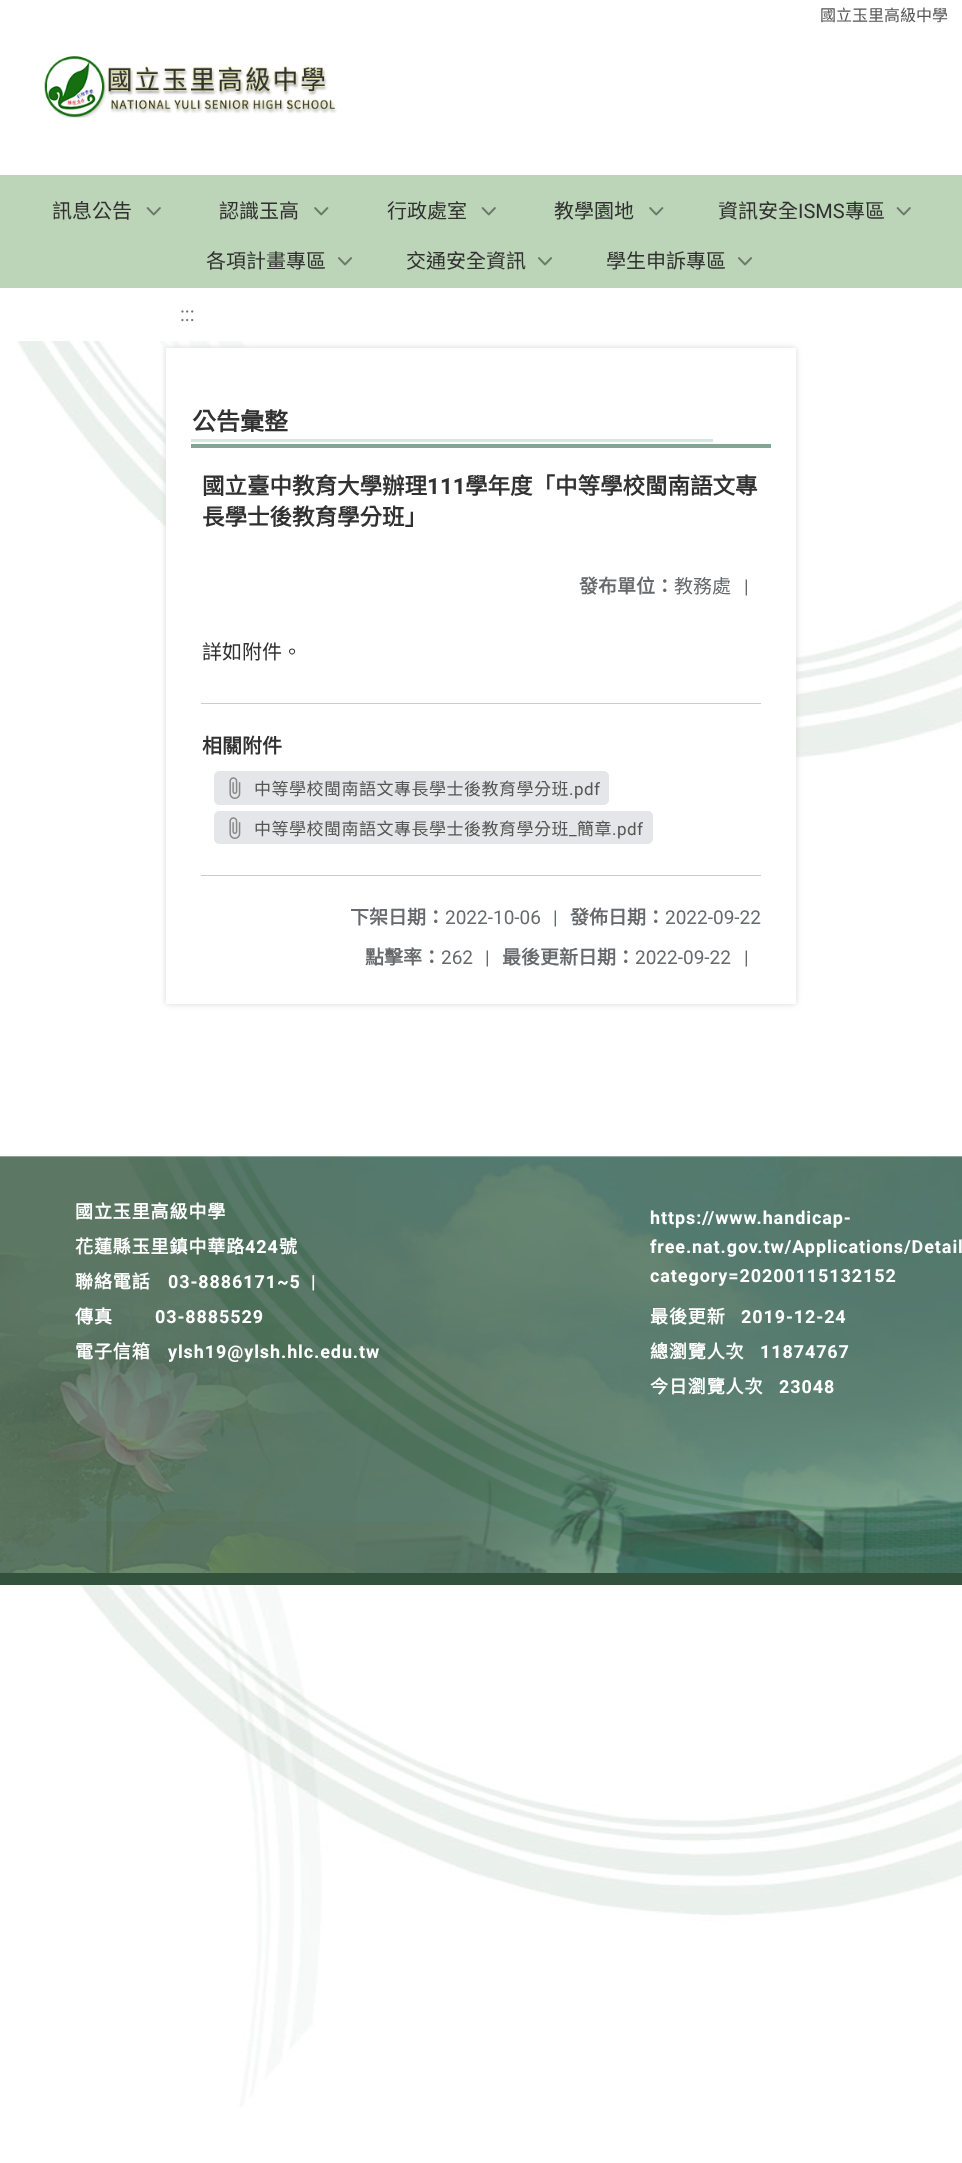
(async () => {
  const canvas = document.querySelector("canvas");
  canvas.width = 962;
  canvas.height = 2163;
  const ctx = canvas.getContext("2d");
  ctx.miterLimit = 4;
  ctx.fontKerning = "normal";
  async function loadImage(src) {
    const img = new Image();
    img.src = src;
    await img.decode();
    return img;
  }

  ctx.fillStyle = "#ffffff";
  ctx.fillRect(0, 0, 962, 2163);
  ctx.drawImage(await loadImage("img/1.png"), 0, 341, 962, 1766);
  ctx.drawImage(await loadImage("img/2.png"), 44, 56, 293, 62);
  ctx.fillStyle = "#bcd4b7";
  ctx.fillRect(0, 175, 962, 113);
  ctx.drawImage(await loadImage("img/3.png"), 146, 207, 15, 9);
  ctx.drawImage(await loadImage("img/4.png"), 314, 207, 15, 9);
  ctx.drawImage(await loadImage("img/3.png"), 481, 207, 15, 9);
  ctx.drawImage(await loadImage("img/4.png"), 649, 207, 15, 9);
  ctx.drawImage(await loadImage("img/3.png"), 896, 207, 15, 9);
  ctx.drawImage(await loadImage("img/5.png"), 338, 257, 14, 9);
  ctx.drawImage(await loadImage("img/5.png"), 538, 257, 14, 9);
  ctx.drawImage(await loadImage("img/5.png"), 738, 257, 14, 9);
  ctx.fillStyle = "#d8d8d8";
  ctx.filter = "blur(3px)";
  ctx.beginPath();
  ctx.rect(166, 348, 630, 656);
  ctx.fill();
  ctx.filter = "none";
  for (const [x, y, w, h, color] of [
    [166, 348, 630, 656, "#ffffff"],
    [191, 439, 522, 3, "#d4e6de"],
    [191, 444, 580, 4, "#83a593"],
    [201, 703, 560, 1, "#cccccc"],
  ]) {
    ctx.fillStyle = color;
    ctx.fillRect(x, y, w, h);
  }
  ctx.fillStyle = "#e5e6e9";
  ctx.beginPath();
  ctx.roundRect(214.5, 771.5, 394, 33, 4.5);
  ctx.fill();
  ctx.strokeStyle = "#e5e6e9";
  ctx.stroke();
  ctx.drawImage(await loadImage("img/6.png"), 229, 777, 12, 22);
  ctx.beginPath();
  ctx.roundRect(214.5, 811.5, 438, 32, 4.5);
  ctx.fill();
  ctx.stroke();
  ctx.drawImage(await loadImage("img/6.png"), 229, 817, 12, 22);
  ctx.fillStyle = "#cccccc";
  ctx.fillRect(201, 875, 560, 1);
  ctx.drawImage(await loadImage("img/7.png"), 0, 1156, 962, 417);
  ctx.fillStyle = "#33523d";
  ctx.fillRect(0, 1573, 962, 12);
  ctx.font = "16px Noto Sans CJK TC";
  ctx.fillStyle = "#555555";
  ctx.fillText("國立玉里高級中學", 820, 21);
  ctx.font = "20px Noto Sans CJK TC";
  ctx.fillStyle = "#313131";
  for (const [text, x, y] of [
    ["訊息公告", 52, 218],
    ["認識玉高", 219, 218],
    ["行政處室", 387, 218],
    ["教學園地", 554, 218],
    ["資訊安全", 718, 218],
  ]) {
    ctx.fillText(text, x, y);
  }
  ctx.font = "20px Roboto";
  ctx.fillText("ISMS", 798, 218);
  ctx.font = "20px Noto Sans CJK TC";
  for (const [text, x, y] of [
    ["專區", 845, 218],
    ["各項計畫專區", 206, 268],
    ["交通安全資訊", 406, 268],
    ["學生申訴專區", 606, 268],
  ]) {
    ctx.fillText(text, x, y);
  }
  ctx.font = "20px Roboto";
  ctx.fillStyle = "#757474";
  ctx.fillText(":::", 180, 321);
  ctx.font = "bold 24px Noto Sans CJK TC";
  ctx.fillStyle = "#313131";
  ctx.fillText("公告彙整", 192, 430);
  ctx.font = "bold 22.5px Noto Sans CJK TC";
  ctx.fillText("國立臺中教育大學辦理", 202, 494);
  ctx.font = "bold 22.5px Roboto";
  ctx.fillText("111", 427, 494);
  ctx.font = "bold 22.5px Noto Sans CJK TC";
  ctx.fillText("學年度「中等學校閩南語文專", 465, 494);
  ctx.fillText("長學士後教育學分班」", 202, 525);
  ctx.font = "bold 19px Noto Sans CJK TC";
  ctx.fillStyle = "#676a6c";
  ctx.fillText("發布單位：", 579, 593);
  ctx.font = "19px Noto Sans CJK TC";
  ctx.fillText("教務處", 674, 593);
  ctx.font = "19px Roboto";
  ctx.fillText("|", 744, 593);
  ctx.font = "20px Noto Sans CJK TC";
  ctx.fillStyle = "#313131";
  ctx.fillText("詳如附件。", 202, 659);
  ctx.font = "bold 20px Noto Sans CJK TC";
  ctx.fillText("相關附件", 202, 753);
  ctx.letterSpacing = "0.5px";
  ctx.font = "17px Noto Sans CJK TC";
  ctx.fillStyle = "#555555";
  ctx.fillText("中等學校閩南語文專長學士後教育學分班", 254, 795);
  ctx.font = "17px Roboto";
  ctx.fillText(".pdf", 569, 795);
  ctx.font = "17px Noto Sans CJK TC";
  ctx.fillText("中等學校閩南語文專長學士後教育學分班", 254, 835);
  ctx.font = "17px Roboto";
  ctx.fillText("_", 569, 835);
  ctx.font = "17px Noto Sans CJK TC";
  ctx.fillText("簡章", 577, 835);
  ctx.font = "17px Roboto";
  ctx.fillText(".pdf", 612, 835);
  ctx.letterSpacing = "0px";
  ctx.font = "bold 19px Noto Sans CJK TC";
  ctx.fillStyle = "#676a6c";
  ctx.fillText("下架日期：", 350, 924);
  ctx.font = "19px Roboto";
  ctx.fillText("2022-10-06", 445, 924);
  ctx.fillText("|", 553, 924);
  ctx.font = "bold 19px Noto Sans CJK TC";
  ctx.fillText("發佈日期：", 570, 924);
  ctx.font = "19px Roboto";
  ctx.fillText("2022-09-22", 665, 924);
  ctx.font = "bold 19px Noto Sans CJK TC";
  ctx.fillText("點擊率：", 365, 964);
  ctx.font = "19px Roboto";
  ctx.fillText("262", 441, 964);
  ctx.fillText("|", 485, 964);
  ctx.font = "bold 19px Noto Sans CJK TC";
  ctx.fillText("最後更新日期：", 502, 964);
  ctx.font = "19px Roboto";
  ctx.fillText("2022-09-22", 635, 964);
  ctx.fillText("|", 744, 964);
  ctx.letterSpacing = "0.9px";
  ctx.font = "bold 18px Noto Sans CJK TC";
  ctx.fillStyle = "#ffffff";
  ctx.fillText("國立玉里高級中學", 75, 1218);
  ctx.fillText("花蓮縣玉里鎮中華路", 75, 1253);
  ctx.font = "bold 18px Roboto";
  ctx.fillText("424", 245, 1253);
  ctx.font = "bold 18px Noto Sans CJK TC";
  ctx.fillText("號", 279, 1253);
  ctx.fillText("聯絡電話", 75, 1288);
  ctx.font = "bold 18px Roboto";
  ctx.fillText("03-8886171~5", 168, 1288);
  ctx.fillText("|", 311, 1288);
  ctx.font = "bold 18px Noto Sans CJK TC";
  ctx.fillText("傳真", 75, 1323);
  ctx.font = "bold 18px Roboto";
  ctx.fillText("03-8885529", 155, 1323);
  ctx.font = "bold 18px Noto Sans CJK TC";
  ctx.fillText("電子信箱", 75, 1358);
  ctx.font = "bold 18px Roboto";
  for (const [text, x, y] of [
    ["ylsh19@ylsh.hlc.edu.tw", 168, 1358],
    ["https://www.handicap-", 650, 1224],
    ["free.nat.gov.tw/Applications/Detail", 650, 1253],
    ["category=20200115132152", 650, 1282],
  ]) {
    ctx.fillText(text, x, y);
  }
  ctx.font = "bold 18px Noto Sans CJK TC";
  ctx.fillText("最後更新", 650, 1323);
  ctx.font = "bold 18px Roboto";
  ctx.fillText("2019-12-24", 741, 1323);
  ctx.font = "bold 18px Noto Sans CJK TC";
  ctx.fillText("總瀏覽人次", 650, 1358);
  ctx.font = "bold 18px Roboto";
  ctx.fillText("11874767", 760, 1358);
  ctx.font = "bold 18px Noto Sans CJK TC";
  ctx.fillText("今日瀏覽人次", 650, 1393);
  ctx.font = "bold 18px Roboto";
  ctx.fillText("23048", 779, 1393);
})();
